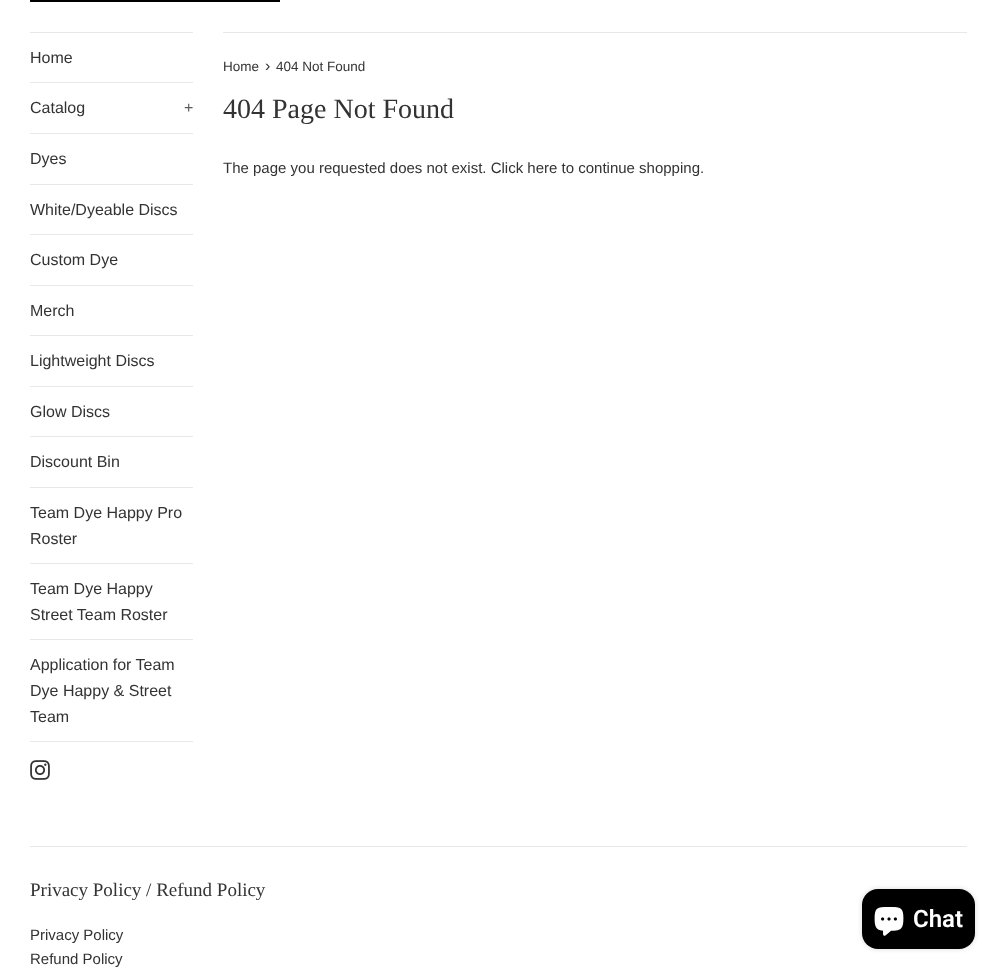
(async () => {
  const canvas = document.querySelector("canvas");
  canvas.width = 997;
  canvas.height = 970;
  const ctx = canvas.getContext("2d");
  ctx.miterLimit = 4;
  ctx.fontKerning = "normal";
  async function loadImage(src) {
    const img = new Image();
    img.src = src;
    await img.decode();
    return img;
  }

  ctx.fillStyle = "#ffffff";
  ctx.fillRect(0, 0, 997, 970);
  for (const [x, y, w, h, color] of [
    [30, 0, 250, 2, "#000000"],
    [30, 32, 163, 1, "#e8e8e8"],
    [30, 82, 163, 1, "#e8e8e8"],
    [30, 133, 163, 1, "#e8e8e8"],
    [30, 184, 163, 1, "#e8e8e8"],
    [30, 234, 163, 1, "#e8e8e8"],
    [30, 285, 163, 1, "#e8e8e8"],
    [30, 335, 163, 1, "#e8e8e8"],
    [30, 386, 163, 1, "#e8e8e8"],
    [30, 436, 163, 1, "#e8e8e8"],
    [30, 487, 163, 1, "#e8e8e8"],
    [30, 563, 163, 1, "#e8e8e8"],
    [30, 639, 163, 1, "#e8e8e8"],
    [30, 741, 163, 1, "#e8e8e8"],
  ]) {
    ctx.fillStyle = color;
    ctx.fillRect(x, y, w, h);
  }
  ctx.drawImage(await loadImage("img/1.png"), 30, 760, 20, 20);
  ctx.fillRect(223, 32, 744, 1);
  ctx.fillRect(30, 846, 937, 1);
  ctx.fillStyle = "rgba(0, 0, 0, 0.15)";
  ctx.filter = "blur(2.5px)";
  ctx.beginPath();
  ctx.roundRect(862, 889, 113, 60, 16);
  ctx.fill();
  ctx.filter = "none";
  ctx.fillStyle = "#000000";
  ctx.beginPath();
  ctx.roundRect(862, 889, 113, 60, 16);
  ctx.fill();
  ctx.drawImage(await loadImage("img/2.png"), 874, 907, 30, 29);
  ctx.font = "16px Liberation Sans";
  ctx.fillStyle = "#333333";
  ctx.fillText("Home", 30, 63);
  ctx.fillText("Catalog", 30, 113);
  ctx.fillStyle = "#5c5c5c";
  ctx.fillText("+", 184, 113);
  ctx.fillStyle = "#333333";
  for (const [text, x, y] of [
    ["Dyes", 30, 164],
    ["White/Dyeable Discs", 30, 215],
    ["Custom Dye", 30, 265],
    ["Merch", 30, 316],
    ["Lightweight Discs", 30, 366],
    ["Glow Discs", 30, 417],
    ["Discount Bin", 30, 467],
    ["Team Dye Happy Pro", 30, 518],
    ["Roster", 30, 544],
    ["Team Dye Happy", 30, 594],
    ["Street Team Roster", 30, 620],
    ["Application for Team", 30, 670],
    ["Dye Happy & Street", 30, 696],
    ["Team", 30, 722],
  ]) {
    ctx.fillText(text, x, y);
  }
  ctx.font = "13.5px Liberation Sans";
  ctx.fillText("Home", 223, 71);
  ctx.font = "16px Liberation Sans";
  ctx.fillText("›", 265, 71);
  ctx.font = "13.5px Liberation Sans";
  ctx.fillText("404 Not Found", 276, 71);
  ctx.font = "28px Liberation Serif";
  ctx.fillText("404 Page Not Found", 223, 118);
  ctx.font = "15px Liberation Sans";
  ctx.fillText("The page you requested does not exist. Click here to continue shopping.", 223, 173);
  ctx.font = "19px Liberation Serif";
  ctx.fillText("Privacy Policy / Refund Policy", 30, 896);
  ctx.font = "15px Liberation Sans";
  ctx.fillText("Privacy Policy", 30, 940);
  ctx.fillText("Refund Policy", 30, 964);
  ctx.font = "600 24px Roboto";
  ctx.fillStyle = "#ffffff";
  ctx.fillText("Chat", 913, 927);
})();
